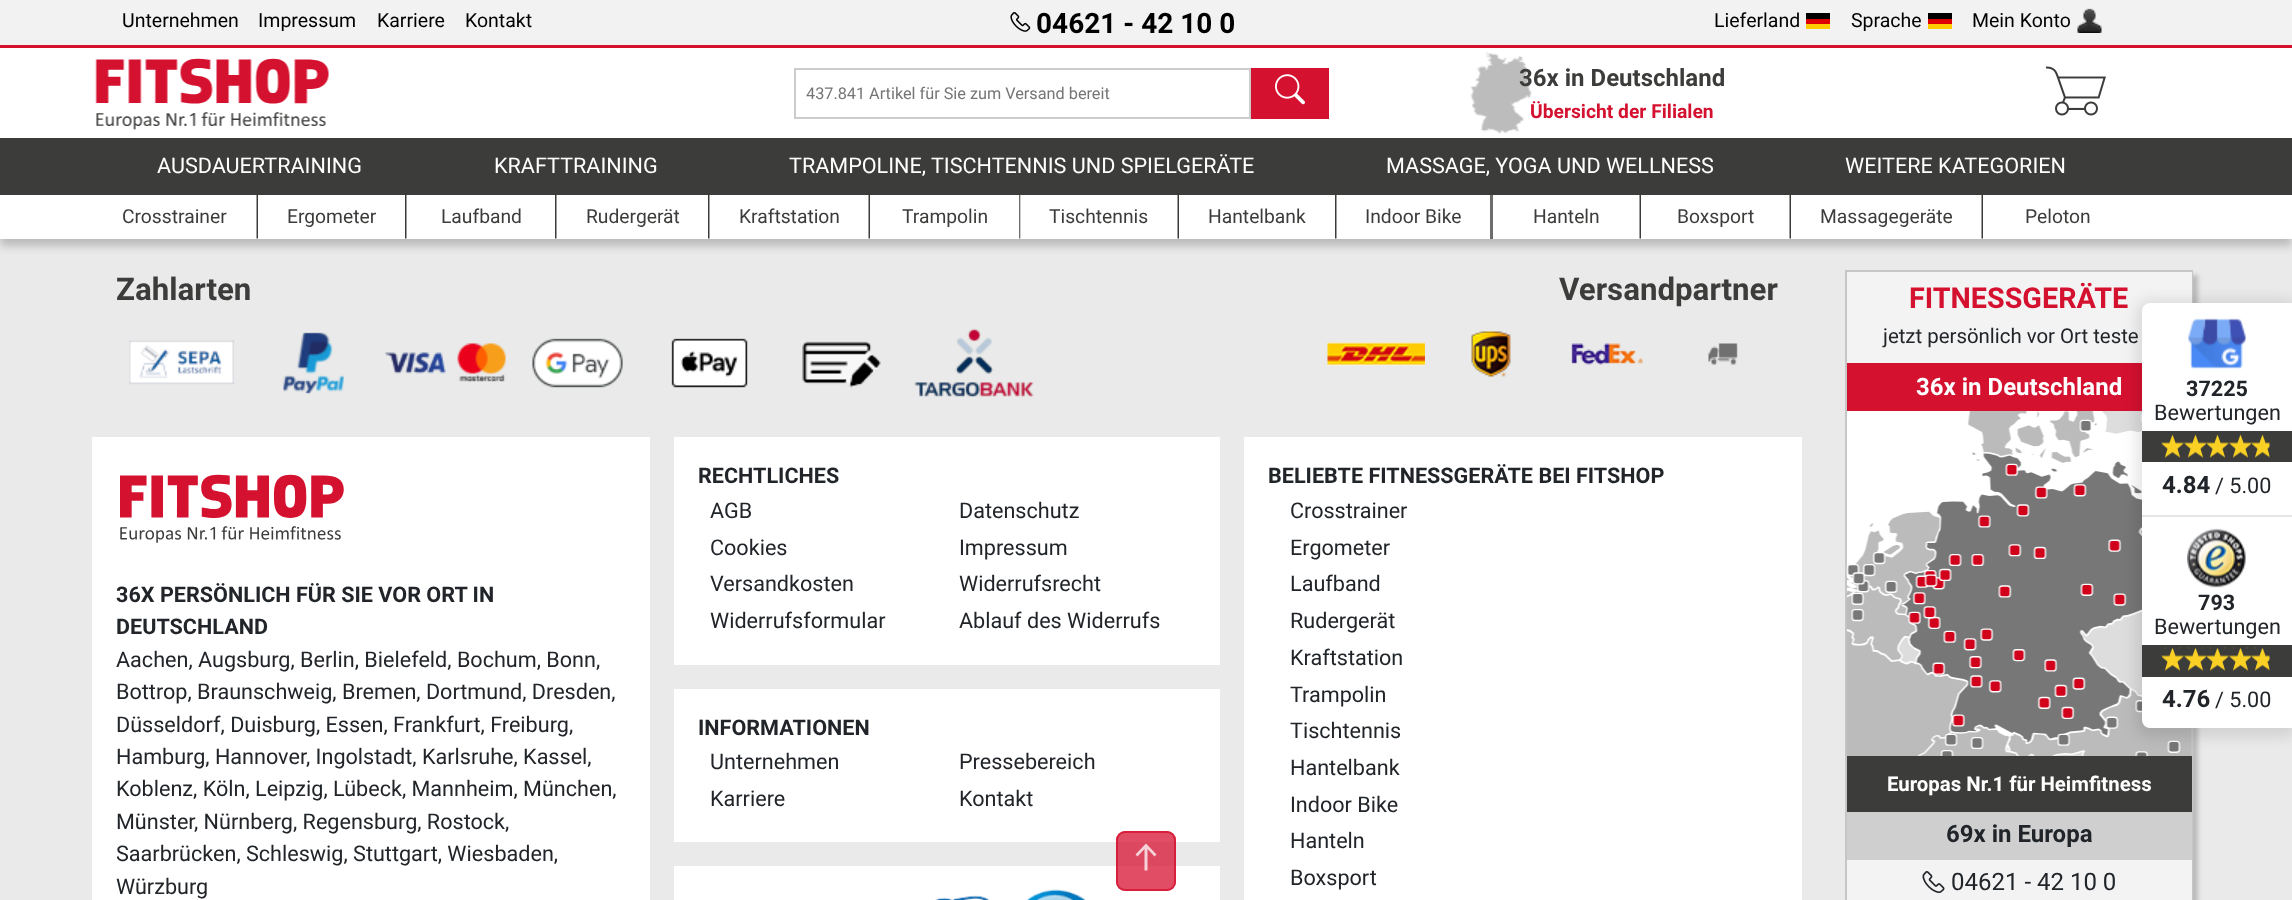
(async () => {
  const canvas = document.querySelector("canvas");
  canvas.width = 2292;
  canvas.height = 900;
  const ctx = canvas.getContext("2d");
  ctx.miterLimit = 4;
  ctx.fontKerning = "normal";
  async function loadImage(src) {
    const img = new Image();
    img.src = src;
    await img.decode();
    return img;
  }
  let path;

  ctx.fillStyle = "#e9eae9";
  ctx.fillRect(0, 0, 2292, 900);
  ctx.fillStyle = "rgba(0, 0, 0, 0.2)";
  ctx.filter = "blur(4px)";
  ctx.beginPath();
  ctx.rect(0, 8, 2292, 238);
  ctx.fill();
  ctx.filter = "none";
  for (const [x, y, w, h, color] of [
    [0, 48, 2292, 191, "#ffffff"],
    [0, 0, 2292, 45, "#f2f2f2"],
    [0, 45, 2292, 3, "#d51130"],
  ]) {
    ctx.fillStyle = color;
    ctx.fillRect(x, y, w, h);
  }
  ctx.drawImage(await loadImage("img/1.png"), 1010, 12, 21, 20);
  for (const [x, y, w, h, color] of [
    [1806, 13, 24, 6, "#000000"],
    [1806, 19, 24, 5, "#dd0000"],
    [1806, 24, 24, 5, "#ffcc00"],
    [1928, 13, 24, 6, "#000000"],
    [1928, 19, 24, 5, "#dd0000"],
    [1928, 24, 24, 5, "#ffcc00"],
  ]) {
    ctx.fillStyle = color;
    ctx.fillRect(x, y, w, h);
  }
  ctx.drawImage(await loadImage("img/2.png"), 2077, 8, 25, 25);
  ctx.drawImage(await loadImage("img/3.png"), 95, 58, 235, 72);
  ctx.strokeStyle = "#cccccc";
  ctx.lineWidth = 2;
  ctx.strokeRect(795, 69, 455, 49);
  ctx.fillStyle = "#d51130";
  ctx.fillRect(1251, 68, 78, 51);
  ctx.drawImage(await loadImage("img/4.png"), 1275, 74, 30, 31);
  ctx.drawImage(await loadImage("img/5.png"), 1470, 52, 62, 82);
  ctx.drawImage(await loadImage("img/6.png"), 2046, 66, 60, 50);
  ctx.fillStyle = "#3c3c3b";
  ctx.fillRect(0, 138, 2292, 57);
  ctx.drawImage(await loadImage("img/7.png"), 256, 195, 2, 44);
  ctx.drawImage(await loadImage("img/8.png"), 405, 195, 2, 44);
  ctx.drawImage(await loadImage("img/8.png"), 555, 195, 2, 44);
  ctx.drawImage(await loadImage("img/8.png"), 708, 195, 2, 44);
  ctx.drawImage(await loadImage("img/7.png"), 868, 195, 2, 44);
  ctx.drawImage(await loadImage("img/9.png"), 1019, 195, 2, 44);
  ctx.drawImage(await loadImage("img/7.png"), 1177, 195, 2, 44);
  ctx.drawImage(await loadImage("img/8.png"), 1335, 195, 2, 44);
  ctx.fillStyle = "#6d6d6c";
  ctx.fillRect(1490, 195, 3, 44);
  ctx.drawImage(await loadImage("img/7.png"), 1639, 195, 2, 44);
  ctx.drawImage(await loadImage("img/7.png"), 1789, 195, 2, 44);
  ctx.drawImage(await loadImage("img/7.png"), 1981, 195, 2, 44);
  ctx.drawImage(await loadImage("img/10.png"), 129, 340, 106, 45);
  ctx.drawImage(await loadImage("img/11.png"), 283, 332, 61, 62);
  ctx.drawImage(await loadImage("img/12.png"), 385, 343, 121, 39);
  ctx.drawImage(await loadImage("img/13.png"), 532, 338, 91, 50);
  ctx.drawImage(await loadImage("img/14.png"), 671, 338, 77, 50);
  ctx.drawImage(await loadImage("img/15.png"), 802, 341, 79, 47);
  ctx.drawImage(await loadImage("img/16.png"), 914, 328, 120, 69);
  ctx.drawImage(await loadImage("img/17.png"), 1327, 341, 98, 25);
  ctx.drawImage(await loadImage("img/18.png"), 1471, 331, 40, 46);
  ctx.drawImage(await loadImage("img/19.png"), 1571, 343, 72, 22);
  ctx.drawImage(await loadImage("img/20.png"), 1708, 343, 30, 22);
  ctx.fillStyle = "#ffffff";
  ctx.fillRect(92, 437, 558, 463);
  ctx.drawImage(await loadImage("img/21.png"), 120, 474, 224, 69);
  for (const [x, y, w, h, color] of [
    [674, 437, 546, 228, "#ffffff"],
    [674, 689, 546, 153, "#ffffff"],
    [674, 866, 546, 34, "#ffffff"],
  ]) {
    ctx.fillStyle = color;
    ctx.fillRect(x, y, w, h);
  }
  ctx.drawImage(await loadImage("img/22.png"), 935, 895, 55, 5);
  ctx.drawImage(await loadImage("img/23.png"), 1026, 889, 60, 11);
  ctx.fillRect(1244, 437, 558, 463);
  ctx.fillStyle = "rgba(0, 0, 0, 0.2)";
  ctx.filter = "blur(2px)";
  ctx.beginPath();
  ctx.rect(1850, 275, 348, 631);
  ctx.fill();
  ctx.filter = "none";
  ctx.fillStyle = "#ffffff";
  ctx.fillRect(1847, 411, 295, 345);
  ctx.strokeStyle = "#c6c6c6";
  ctx.strokeRect(1846, 271, 346, 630);
  for (const [x, y, w, h, color] of [
    [1847, 272, 345, 49, "#f3f3f3"],
    [1847, 321, 295, 42, "#f3f3f3"],
    [1847, 363, 295, 48, "#d51130"],
  ]) {
    ctx.fillStyle = color;
    ctx.fillRect(x, y, w, h);
  }
  ctx.drawImage(await loadImage("img/28.png"), 1846, 411, 346, 345);
  ctx.fillStyle = "#3c3c3b";
  ctx.fillRect(1847, 756, 345, 56);
  ctx.fillStyle = "rgba(0, 0, 0, 0.1)";
  ctx.filter = "blur(7px)";
  ctx.beginPath();
  ctx.roundRect(2136, 300, 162, 437, 14);
  ctx.fill();
  ctx.filter = "none";
  ctx.fillStyle = "#ffffff";
  ctx.beginPath();
  ctx.roundRect(2142, 303, 150, 425, [8, 0, 0, 8]);
  ctx.fill();
  ctx.drawImage(await loadImage("img/24.png"), 2188, 318, 58, 51);
  ctx.fillStyle = "#3c3c3b";
  ctx.fillRect(2142, 431, 150, 31);
  ctx.drawImage(await loadImage("img/25.png"), 2161, 434, 109, 24);
  ctx.fillStyle = "#e6e6e6";
  ctx.fillRect(2142, 515, 150, 2);
  ctx.drawImage(await loadImage("img/26.png"), 2187, 528, 59, 60);
  ctx.fillStyle = "#3c3c3b";
  ctx.fillRect(2142, 645, 150, 32);
  ctx.drawImage(await loadImage("img/27.png"), 2161, 647, 109, 24);
  ctx.fillStyle = "rgba(213, 17, 48, 0.75)";
  ctx.beginPath();
  ctx.roundRect(1116, 831, 60, 60, 9);
  ctx.fill();
  ctx.beginPath();
  ctx.roundRect(1117, 832, 58, 58, 8);
  ctx.strokeStyle = "rgba(213, 17, 48, 0.75)";
  ctx.stroke();
  ctx.fillStyle = "rgba(255, 255, 255, 0.75)";
  path = new Path2D("M1156.5 854.5L1146 843.5L1135.5 854.5L1137.5 856.5L1144.5 849V870.5H1147.5V849L1154.5 856.5Z");
  ctx.fill(path);
  ctx.fillStyle = "#cfcfcf";
  ctx.fillRect(1847, 812, 345, 48);
  ctx.fillStyle = "#f3f3f3";
  ctx.fillRect(1847, 860, 345, 40);
  ctx.drawImage(await loadImage("img/29.png"), 1922, 871, 23, 22);
  ctx.font = "19.5px Roboto";
  ctx.fillStyle = "#000000";
  for (const [text, x, y] of [
    ["Unternehmen", 122, 27],
    ["Impressum", 258, 27],
    ["Karriere", 377, 27],
    ["Kontakt", 465, 27],
  ]) {
    ctx.fillText(text, x, y);
  }
  ctx.font = "bold 28px Roboto";
  ctx.fillText("04621 - 42 10 0", 1036, 33);
  ctx.font = "19.5px Roboto";
  for (const [text, x, y] of [
    ["Lieferland", 1714, 27],
    ["Sprache", 1851, 27],
    ["Mein Konto", 1972, 27],
  ]) {
    ctx.fillText(text, x, y);
  }
  ctx.font = "16.25px Roboto";
  ctx.fillStyle = "#757575";
  ctx.fillText("437.841 Artikel für Sie zum Versand bereit", 806, 99);
  ctx.font = "bold 24px Roboto";
  ctx.fillStyle = "#3c3c3b";
  ctx.fillText("36x in Deutschland", 1519, 86);
  ctx.font = "bold 19.25px Roboto";
  ctx.fillStyle = "#d51130";
  ctx.fillText("Übersicht der Filialen", 1530, 118);
  ctx.font = "21.6px Roboto";
  ctx.fillStyle = "#ffffff";
  for (const [text, x, y] of [
    ["AUSDAUERTRAINING", 157, 173],
    ["KRAFTTRAINING", 494, 173],
    ["TRAMPOLINE, TISCHTENNIS UND SPIELGERÄTE", 789, 173],
    ["MASSAGE, YOGA UND WELLNESS", 1386, 173],
    ["WEITERE KATEGORIEN", 1845, 173],
  ]) {
    ctx.fillText(text, x, y);
  }
  ctx.font = "19.25px Roboto";
  ctx.fillStyle = "#3c3c3b";
  for (const [text, x, y] of [
    ["Crosstrainer", 122, 223],
    ["Ergometer", 287, 223],
    ["Laufband", 441, 223],
    ["Rudergerät", 586, 223],
    ["Kraftstation", 739, 223],
    ["Trampolin", 902, 223],
    ["Tischtennis", 1049, 223],
    ["Hantelbank", 1208, 223],
    ["Indoor Bike", 1365, 223],
    ["Hanteln", 1533, 223],
    ["Boxsport", 1677, 223],
    ["Massagegeräte", 1820, 223],
    ["Peloton", 2025, 223],
  ]) {
    ctx.fillText(text, x, y);
  }
  ctx.font = "bold 31.25px Roboto";
  ctx.fillText("Zahlarten", 116, 300);
  ctx.fillText("Versandpartner", 1559, 300);
  ctx.font = "bold 21.6px Roboto";
  ctx.fillStyle = "#212529";
  ctx.fillText("36X PERSÖNLICH FÜR SIE VOR ORT IN", 116, 602);
  ctx.fillText("DEUTSCHLAND", 116, 634);
  ctx.font = "21.6px Roboto";
  for (const [text, x, y] of [
    ["Aachen, Augsburg, Berlin, Bielefeld, Bochum, Bonn,", 116, 667],
    ["Bottrop, Braunschweig, Bremen, Dortmund, Dresden,", 116, 699],
    ["Düsseldorf, Duisburg, Essen, Frankfurt, Freiburg,", 116, 732],
    ["Hamburg, Hannover", 116, 764],
    [", Ingolstadt, Karlsruhe, Kassel,", 306, 764],
    ["Koblenz, Köln, Leipzig, Lübeck, Mannheim, München,", 116, 796],
    ["Münster", 116, 829],
    [", Nürnberg, Regensburg, Rostock,", 194, 829],
    ["Saarbrücken, Schleswig, Stuttgart, Wiesbaden,", 116, 861],
    ["Würzburg", 116, 894],
  ]) {
    ctx.fillText(text, x, y);
  }
  ctx.font = "bold 21.6px Roboto";
  ctx.fillText("RECHTLICHES", 698, 483);
  ctx.font = "21.6px Roboto";
  for (const [text, x, y] of [
    ["AGB", 710, 518],
    ["Datenschutz", 959, 518],
    ["Cookies", 710, 555],
    ["Impressum", 959, 555],
    ["Versandkosten", 710, 591],
    ["Widerrufsrecht", 959, 591],
    ["Widerrufsformular", 710, 628],
    ["Ablauf des Widerrufs", 959, 628],
  ]) {
    ctx.fillText(text, x, y);
  }
  ctx.font = "bold 21.6px Roboto";
  ctx.fillText("INFORMATIONEN", 698, 735);
  ctx.font = "21.6px Roboto";
  for (const [text, x, y] of [
    ["Unternehmen", 710, 769],
    ["Pressebereich", 959, 769],
    ["Karriere", 710, 806],
    ["Kontakt", 959, 806],
  ]) {
    ctx.fillText(text, x, y);
  }
  ctx.font = "bold 21.6px Roboto";
  ctx.fillText("BELIEBTE FITNESSGERÄTE BEI FITSHOP", 1268, 483);
  ctx.font = "21.6px Roboto";
  for (const [text, x, y] of [
    ["Crosstrainer", 1290, 518],
    ["Ergometer", 1290, 555],
    ["Laufband", 1290, 591],
    ["Rudergerät", 1290, 628],
    ["Kraftstation", 1290, 665],
    ["Trampolin", 1290, 702],
    ["Tischtennis", 1290, 738],
    ["Hantelbank", 1290, 775],
    ["Indoor Bike", 1290, 812],
    ["Hanteln", 1290, 848],
    ["Boxsport", 1290, 885],
  ]) {
    ctx.fillText(text, x, y);
  }
  ctx.font = "bold 21.6px Roboto";
  ctx.fillText("37225", 2186, 396);
  ctx.font = "21.6px Roboto";
  ctx.fillText("Bewertungen", 2154, 420);
  ctx.font = "bold 24px Roboto";
  ctx.fillText("4.84", 2162, 493);
  ctx.font = "21.6px Roboto";
  ctx.fillText("/ 5.00", 2215, 493);
  ctx.font = "bold 21.6px Roboto";
  ctx.fillText("793", 2198, 610);
  ctx.font = "21.6px Roboto";
  ctx.fillText("Bewertungen", 2154, 634);
  ctx.font = "bold 24px Roboto";
  ctx.fillText("4.76", 2162, 707);
  ctx.font = "21.6px Roboto";
  ctx.fillText("/ 5.00", 2215, 707);
  ctx.font = "bold 28.75px Roboto";
  ctx.fillStyle = "#d51130";
  ctx.fillText("FITNESSGERÄTE", 1909, 308);
  ctx.font = "20.4px Roboto";
  ctx.fillStyle = "#212529";
  ctx.fillText("jetzt persönlich vor Ort teste", 1883, 343);
  ctx.font = "bold 24px Roboto";
  ctx.fillStyle = "#ffffff";
  ctx.fillText("36x in Deutschland", 1916, 395);
  ctx.font = "bold 20.4px Roboto";
  ctx.fillText("Europas Nr.1 für Heimfitness", 1887, 791);
  ctx.font = "bold 24px Roboto";
  ctx.fillStyle = "#212529";
  ctx.fillText("69x in Europa", 1946, 842);
  ctx.font = "24px Roboto";
  ctx.fillText("04621 - 42 10 0", 1951, 890);
})();
